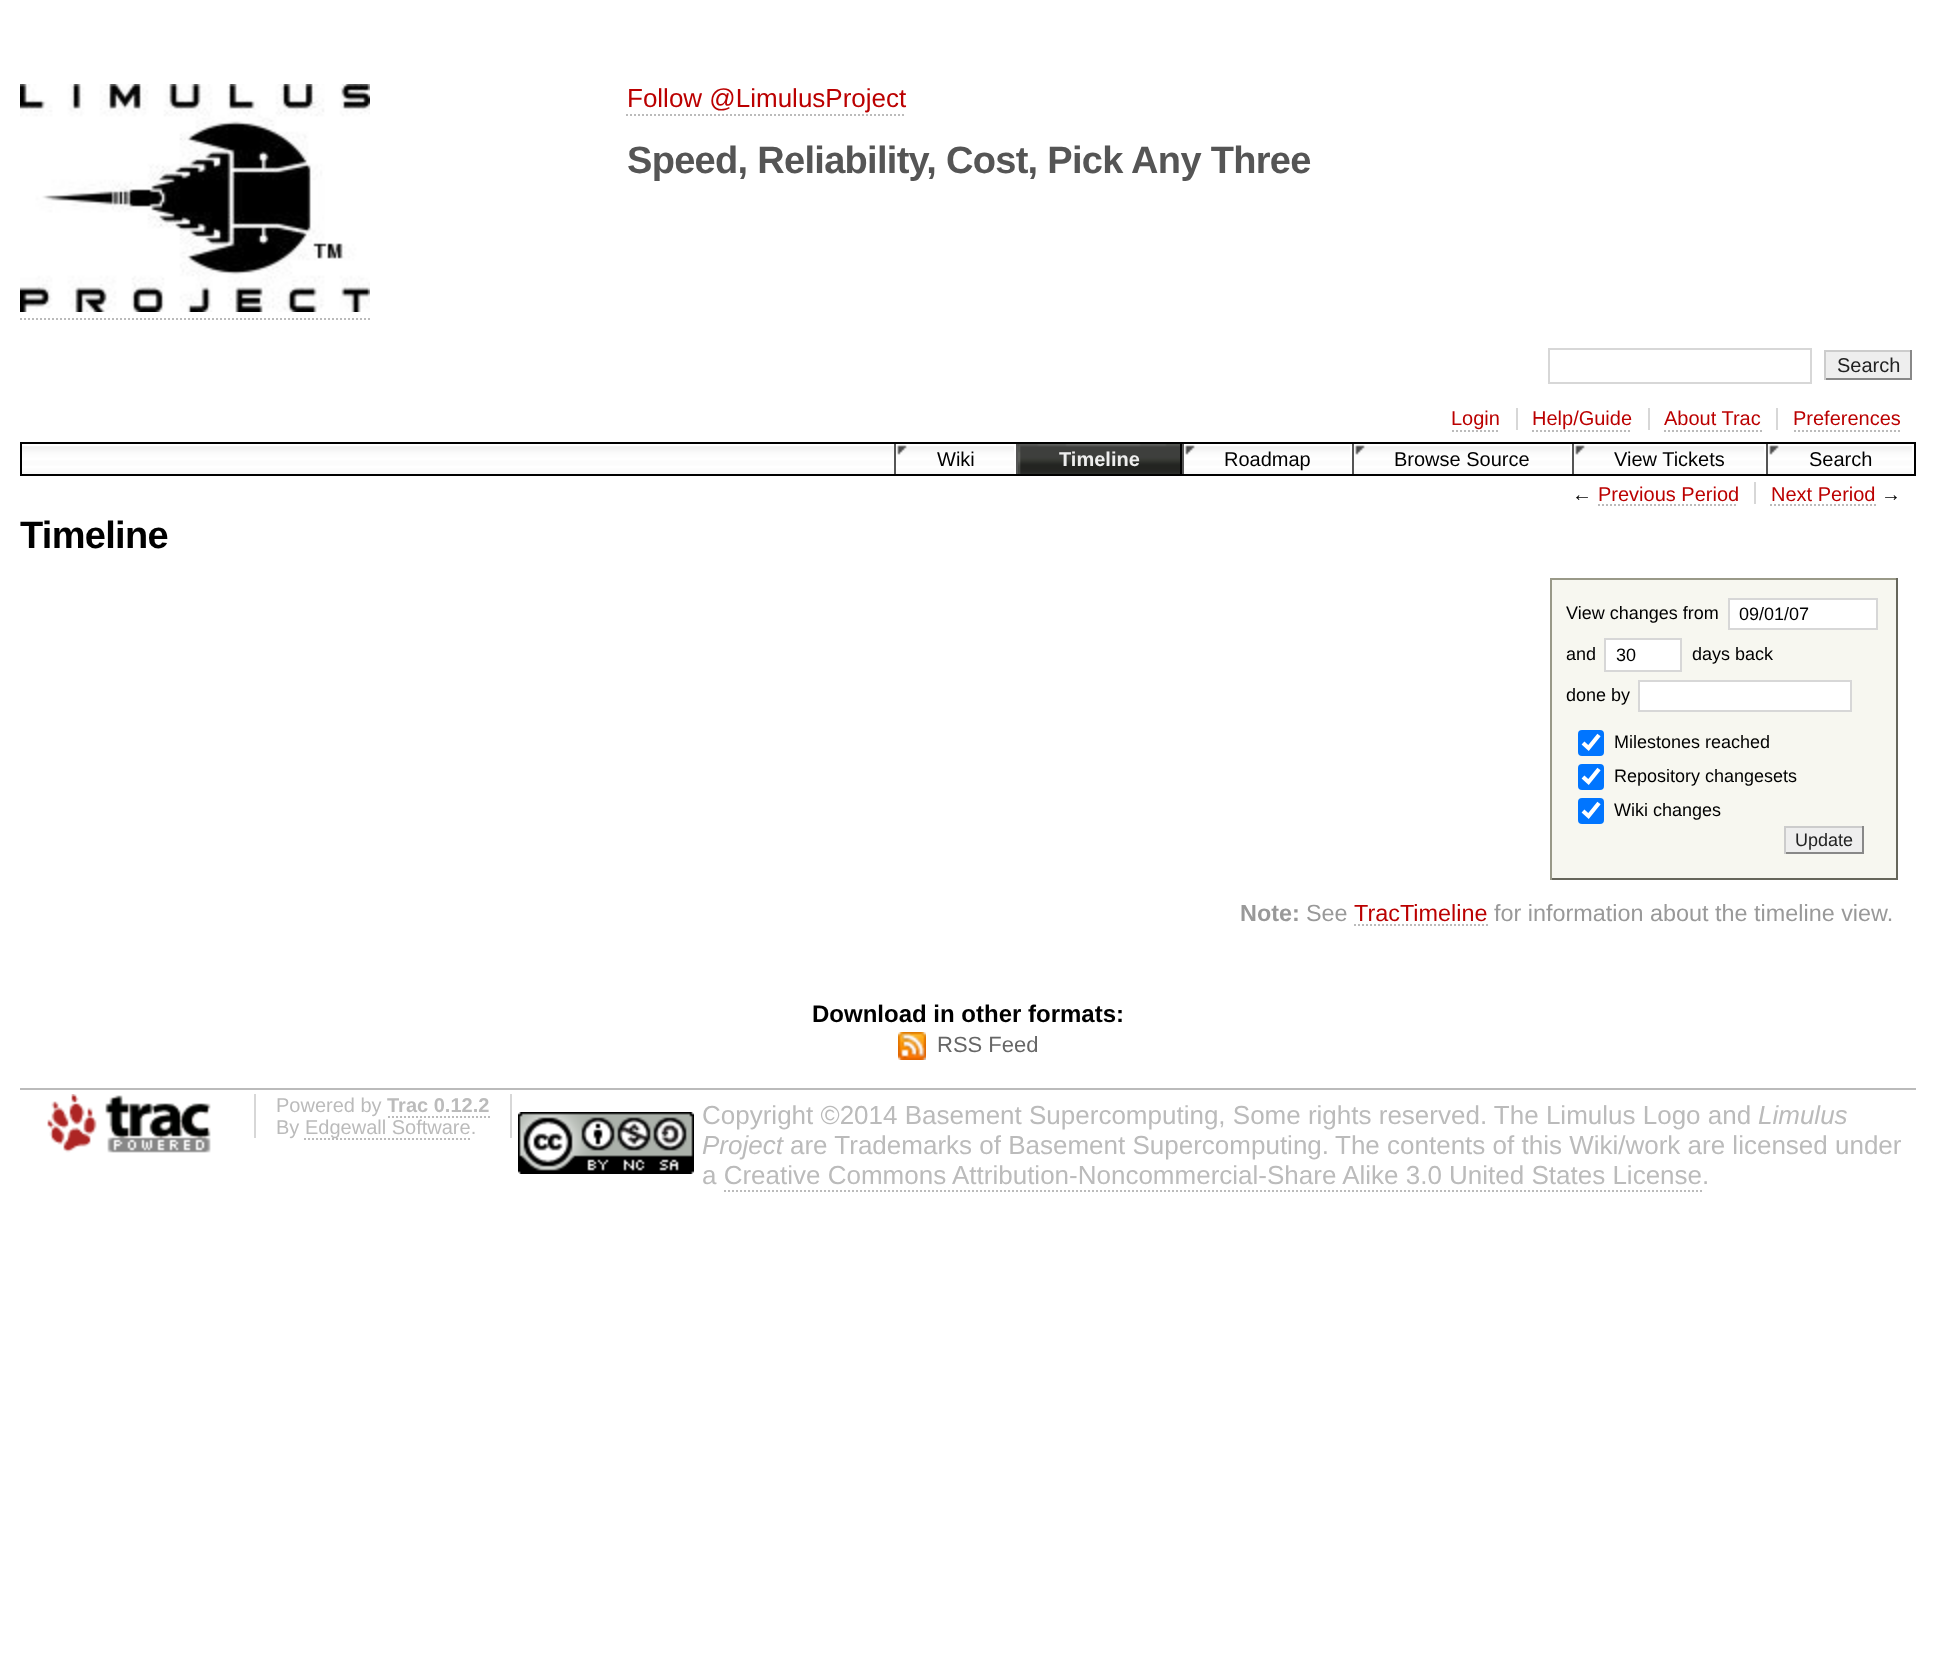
(async () => {
  const canvas = document.querySelector("canvas");
  canvas.width = 1935;
  canvas.height = 1666;
  const ctx = canvas.getContext("2d");
  ctx.miterLimit = 4;
  ctx.fontKerning = "normal";
  async function loadImage(src) {
    const img = new Image();
    img.src = src;
    await img.decode();
    return img;
  }
  let path;

  ctx.fillStyle = "#ffffff";
  ctx.fillRect(0, 0, 1935, 1666);
  ctx.drawImage(await loadImage("img/1.png"), 20, 84, 350, 228);
  path = new Path2D("M20 319H370");
  ctx.strokeStyle = "#bbbbbb";
  ctx.lineWidth = 2;
  ctx.setLineDash([2, 2]);
  ctx.stroke(path);
  path = new Path2D("M626 115H906");
  ctx.stroke(path);
  ctx.strokeStyle = "#d7d7d7";
  ctx.setLineDash([]);
  ctx.strokeRect(1549, 349, 262, 34);
  for (const [x, y, w, h, color] of [
    [1826, 352, 84, 26, "#eeeeee"],
    [1824, 350, 88, 2, "#cccccc"],
    [1910, 350, 2, 30, "#888888"],
    [1824, 378, 88, 2, "#888888"],
    [1824, 350, 2, 30, "#cccccc"],
    [1516, 408, 2, 22, "#d7d7d7"],
  ]) {
    ctx.fillStyle = color;
    ctx.fillRect(x, y, w, h);
  }
  path = new Path2D("M1452 431H1500");
  ctx.strokeStyle = "#bbbbbb";
  ctx.setLineDash([2, 2]);
  ctx.stroke(path);
  ctx.fillRect(1648, 408, 2, 22);
  path = new Path2D("M1532 431H1632");
  ctx.stroke(path);
  ctx.fillRect(1776, 408, 2, 22);
  path = new Path2D("M1664 431H1762");
  ctx.stroke(path);
  path = new Path2D("M1794 431H1902");
  ctx.stroke(path);
  ctx.drawImage(await loadImage("img/2.png"), 22, 446, 1890, 28);
  ctx.strokeStyle = "#000000";
  ctx.setLineDash([]);
  ctx.strokeRect(21, 443, 1894, 32);
  ctx.drawImage(await loadImage("img/3.png"), 897, 445, 10, 10);
  ctx.fillStyle = "#000000";
  ctx.fillRect(1018, 444, 164, 30);
  ctx.drawImage(await loadImage("img/4.png"), 1018, 444, 162, 30);
  ctx.drawImage(await loadImage("img/3.png"), 1185, 445, 10, 10);
  ctx.drawImage(await loadImage("img/3.png"), 1355, 445, 10, 10);
  ctx.drawImage(await loadImage("img/3.png"), 1575, 445, 10, 10);
  ctx.drawImage(await loadImage("img/3.png"), 1769, 445, 10, 10);
  for (const [x, y, w, h, color] of [
    [1014, 444, 2, 30, "#ffffff"],
    [894, 444, 2, 30, "#555555"],
    [1016, 444, 2, 30, "#555555"],
    [1350, 444, 2, 30, "#ffffff"],
    [1182, 444, 2, 30, "#555555"],
    [1570, 444, 2, 30, "#ffffff"],
    [1352, 444, 2, 30, "#555555"],
    [1764, 444, 2, 30, "#ffffff"],
    [1572, 444, 2, 30, "#555555"],
    [1766, 444, 2, 30, "#555555"],
    [1754, 482, 2, 22, "#d7d7d7"],
  ]) {
    ctx.fillStyle = color;
    ctx.fillRect(x, y, w, h);
  }
  path = new Path2D("M1598 505H1738");
  ctx.strokeStyle = "#bbbbbb";
  ctx.setLineDash([2, 2]);
  ctx.stroke(path);
  path = new Path2D("M1770 505H1876");
  ctx.stroke(path);
  for (const [x, y, w, h, color] of [
    [1552, 580, 344, 298, "#f7f7f0"],
    [1550, 578, 348, 2, "#999988"],
    [1896, 578, 2, 302, "#66665b"],
    [1550, 878, 348, 2, "#66665b"],
    [1550, 578, 2, 302, "#999988"],
  ]) {
    ctx.fillStyle = color;
    ctx.fillRect(x, y, w, h);
  }
  ctx.fillStyle = "#ffffff";
  ctx.beginPath();
  ctx.rect(1729, 599, 148, 30);
  ctx.fill();
  ctx.strokeStyle = "#d7d7d7";
  ctx.setLineDash([]);
  ctx.stroke();
  ctx.beginPath();
  ctx.rect(1605, 639, 76, 32);
  ctx.fill();
  ctx.stroke();
  ctx.beginPath();
  ctx.rect(1639, 681, 212, 30);
  ctx.fill();
  ctx.stroke();
  ctx.fillStyle = "#0075ff";
  ctx.beginPath();
  ctx.roundRect(1578, 730, 26, 26, 4);
  ctx.fill();
  path = new Path2D("M1583 743L1588.5 748L1599 735");
  ctx.strokeStyle = "#ffffff";
  ctx.lineWidth = 4.2;
  ctx.stroke(path);
  ctx.beginPath();
  ctx.roundRect(1578, 764, 26, 26, 4);
  ctx.fill();
  path = new Path2D("M1583 777L1588.5 782L1599 769");
  ctx.stroke(path);
  ctx.beginPath();
  ctx.roundRect(1578, 798, 26, 26, 4);
  ctx.fill();
  path = new Path2D("M1583 811L1588.5 816L1599 803");
  ctx.stroke(path);
  for (const [x, y, w, h, color] of [
    [1786, 828, 76, 24, "#eeeeee"],
    [1784, 826, 80, 2, "#cccccc"],
    [1862, 826, 2, 28, "#888888"],
    [1784, 852, 80, 2, "#888888"],
    [1784, 826, 2, 28, "#cccccc"],
  ]) {
    ctx.fillStyle = color;
    ctx.fillRect(x, y, w, h);
  }
  path = new Path2D("M1354 925H1488");
  ctx.strokeStyle = "#bbbbbb";
  ctx.lineWidth = 2;
  ctx.setLineDash([2, 2]);
  ctx.stroke(path);
  ctx.drawImage(await loadImage("img/5.png"), 898, 1032, 28, 28);
  ctx.fillStyle = "#bbbbbb";
  ctx.fillRect(20, 1088, 1896, 2);
  ctx.drawImage(await loadImage("img/6.png"), 47, 1094, 164, 59);
  ctx.fillStyle = "#d7d7d7";
  ctx.fillRect(510, 1094, 2, 44);
  ctx.fillRect(254, 1094, 2, 44);
  path = new Path2D("M388 1117H490");
  ctx.stroke(path);
  path = new Path2D("M304 1139H470");
  ctx.stroke(path);
  ctx.drawImage(await loadImage("img/7.png"), 518, 1112, 176, 62);
  path = new Path2D("M724 1191H1702");
  ctx.stroke(path);
  ctx.font = "26px Liberation Sans";
  ctx.fillStyle = "#bb0000";
  ctx.fillText("Follow @LimulusProject", 627, 107);
  ctx.letterSpacing = "-0.7px";
  ctx.font = "bold 38px Liberation Sans";
  ctx.fillStyle = "#555555";
  ctx.fillText("Speed, Reliability, Cost, Pick Any Three", 627, 173);
  ctx.letterSpacing = "0px";
  ctx.font = "20px Liberation Sans";
  ctx.fillStyle = "#222222";
  ctx.fillText("Search", 1837, 372);
  ctx.fillStyle = "#bb0000";
  for (const [text, x, y] of [
    ["Login", 1451, 425],
    ["Help/Guide", 1532, 425],
    ["About Trac", 1664, 425],
    ["Preferences", 1793, 425],
  ]) {
    ctx.fillText(text, x, y);
  }
  ctx.fillStyle = "#000000";
  ctx.fillText("Wiki", 937, 466);
  ctx.font = "bold 20px Liberation Sans";
  ctx.fillStyle = "#eeeeee";
  ctx.fillText("Timeline", 1059, 466);
  ctx.font = "20px Liberation Sans";
  ctx.fillStyle = "#000000";
  for (const [text, x, y] of [
    ["Roadmap", 1224, 466],
    ["Browse Source", 1394, 466],
    ["View Tickets", 1614, 466],
    ["Search", 1809, 466],
    ["←", 1572, 501],
  ]) {
    ctx.fillText(text, x, y);
  }
  ctx.fillStyle = "#bb0000";
  ctx.fillText("Previous Period", 1598, 501);
  ctx.fillText("Next Period", 1771, 501);
  ctx.fillStyle = "#000000";
  ctx.fillText("→", 1881, 501);
  ctx.letterSpacing = "-0.7px";
  ctx.font = "bold 38px Liberation Sans";
  ctx.fillText("Timeline", 20, 548);
  ctx.letterSpacing = "0px";
  ctx.font = "18px Liberation Sans";
  for (const [text, x, y] of [
    ["View changes from", 1566, 619],
    ["09/01/07", 1739, 620],
    ["and", 1566, 660],
    ["30", 1616, 661],
    ["days back", 1692, 660],
    ["done by", 1566, 701],
    ["Milestones reached", 1614, 748],
    ["Repository changesets", 1614, 782],
    ["Wiki changes", 1614, 816],
  ]) {
    ctx.fillText(text, x, y);
  }
  ctx.fillStyle = "#222222";
  ctx.fillText("Update", 1795, 846);
  ctx.font = "bold 23.4px Liberation Sans";
  ctx.fillStyle = "#999999";
  ctx.fillText("Note:", 1240, 921);
  ctx.font = "23.4px Liberation Sans";
  ctx.fillText("See", 1306, 921);
  ctx.fillStyle = "#bb0000";
  ctx.fillText("TracTimeline", 1354, 921);
  ctx.fillStyle = "#999999";
  ctx.fillText("for information about the timeline view.", 1494, 921);
  ctx.font = "bold 24px Liberation Sans";
  ctx.fillStyle = "#000000";
  ctx.fillText("Download in other formats:", 812, 1022);
  ctx.font = "22px Liberation Sans";
  ctx.fillStyle = "#666666";
  ctx.fillText("RSS Feed", 937, 1052);
  ctx.font = "20px Liberation Sans";
  ctx.fillStyle = "#bbbbbb";
  ctx.fillText("Powered by", 276, 1112);
  ctx.font = "bold 20px Liberation Sans";
  ctx.fillText("Trac 0.12.2", 387, 1112);
  ctx.font = "20px Liberation Sans";
  ctx.fillText("By", 276, 1134);
  ctx.fillText("Edgewall Software.", 305, 1134);
  ctx.font = "26px Liberation Sans";
  ctx.fillText("Copyright ©2014 Basement Supercomputing, Some rights reserved. The Limulus Logo and", 702, 1124);
  ctx.font = "italic 26px Liberation Sans";
  ctx.fillText("Limulus", 1758, 1124);
  ctx.fillText("Project", 702, 1154);
  ctx.font = "26px Liberation Sans";
  for (const [text, x, y] of [
    ["are Trademarks of Basement Supercomputing.", 790, 1154],
    ["The contents of this Wiki/work are licensed under", 1335, 1154],
    ["a Creative Commons Attribution-Noncommercial-Share Alike 3.0 United States License.", 702, 1184],
  ]) {
    ctx.fillText(text, x, y);
  }
})();
